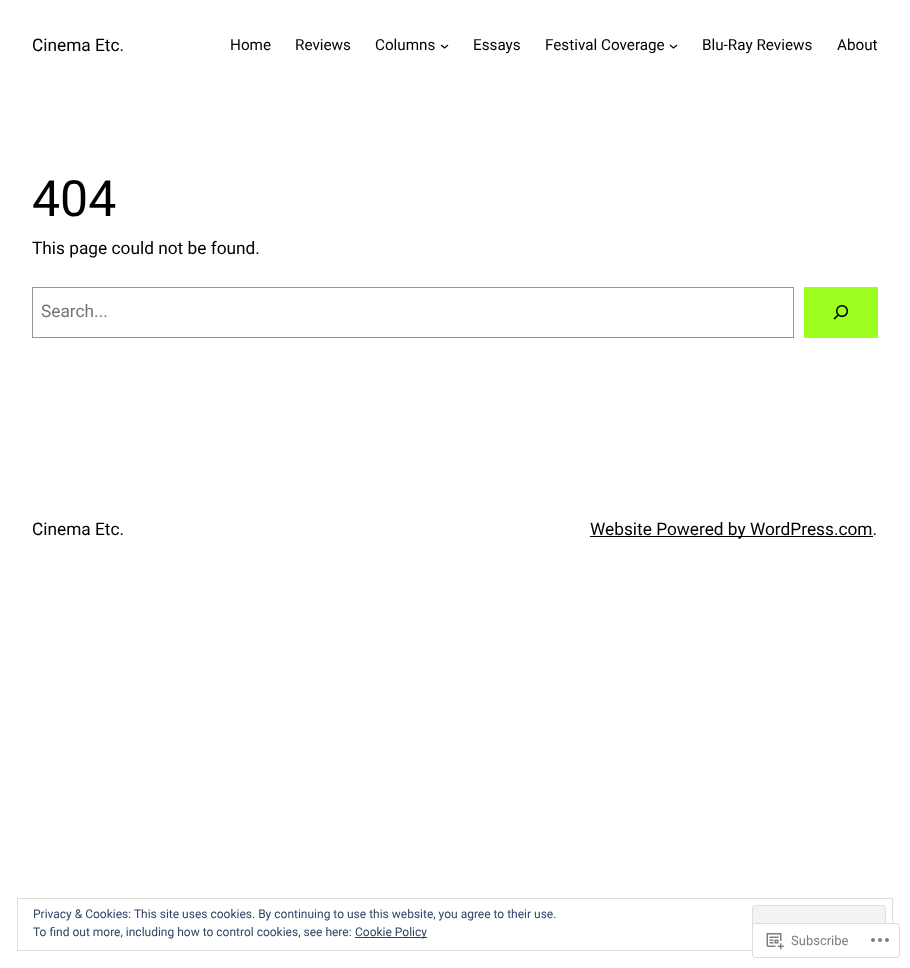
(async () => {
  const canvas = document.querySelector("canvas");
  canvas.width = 910;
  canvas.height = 968;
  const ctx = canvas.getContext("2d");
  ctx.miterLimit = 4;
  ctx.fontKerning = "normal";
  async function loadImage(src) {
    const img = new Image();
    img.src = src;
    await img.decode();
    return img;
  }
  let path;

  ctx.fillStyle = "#ffffff";
  ctx.fillRect(0, 0, 910, 968);
  path = new Path2D("M441 45L444.5 48L448 45");
  ctx.strokeStyle = "#000000";
  ctx.lineWidth = 1.2;
  ctx.stroke(path);
  path = new Path2D("M670 45L673.5 48L677 45");
  ctx.stroke(path);
  ctx.strokeStyle = "#949494";
  ctx.lineWidth = 1;
  ctx.strokeRect(32.5, 287.5, 761, 50);
  ctx.fillStyle = "#9dff20";
  ctx.fillRect(804, 287, 74, 51);
  ctx.drawImage(await loadImage("img/1.png"), 833, 305, 16, 15);
  ctx.fillStyle = "#000000";
  ctx.fillRect(590, 536, 283, 1);
  ctx.strokeStyle = "#dedede";
  ctx.strokeRect(17.5, 898.5, 875, 52);
  ctx.fillStyle = "#f3f3f3";
  ctx.beginPath();
  ctx.roundRect(752.5, 905.5, 133, 38, 2.5);
  ctx.fill();
  ctx.stroke();
  ctx.fillStyle = "#2e4467";
  ctx.fillRect(355, 937, 72, 1);
  ctx.fillStyle = "rgba(255, 255, 255, 0.98)";
  ctx.beginPath();
  ctx.roundRect(752, 923, 148, 35, 3);
  ctx.fill();
  ctx.beginPath();
  ctx.roundRect(752.5, 923.5, 147, 34, 2.5);
  ctx.strokeStyle = "rgba(220, 220, 222, 0.98)";
  ctx.stroke();
  ctx.drawImage(await loadImage("img/2.png"), 766, 933, 18, 17);
  ctx.drawImage(await loadImage("img/3.png"), 871, 938, 18, 4);
  ctx.font = "17.3px Roboto";
  ctx.fillStyle = "#000000";
  ctx.fillText("Cinema Etc.", 32, 51);
  ctx.font = "15.25px Roboto";
  for (const [text, x, y] of [
    ["Home", 230, 50],
    ["Reviews", 295, 50],
    ["Columns", 375, 50],
    ["Essays", 473, 50],
    ["Festival Coverage", 545, 50],
    ["Blu-Ray Reviews", 702, 50],
    ["About", 837, 50],
  ]) {
    ctx.fillText(text, x, y);
  }
  ctx.font = "50px Roboto";
  ctx.fillText("404", 32, 216);
  ctx.font = "17.3px Roboto";
  ctx.fillText("This page could not be found.", 32, 254);
  ctx.fillStyle = "#757575";
  ctx.fillText("Search...", 41, 317);
  ctx.fillStyle = "#000000";
  ctx.fillText("Cinema Etc.", 32, 535);
  ctx.fillText("Website Powered by WordPress.com.", 590, 535);
  ctx.font = "12px Roboto";
  ctx.fillStyle = "#2e4467";
  for (const [text, x, y] of [
    ["Privacy & Cookies: This site uses cookies. By continuing to use this website, you agree to their use.", 33, 918],
    ["To find out more, including how to control cookies, see here:", 33, 936],
    ["Cookie Policy", 355, 936],
  ]) {
    ctx.fillText(text, x, y);
  }
  ctx.font = "13px Roboto";
  ctx.fillStyle = "#7b7f84";
  ctx.fillText("Subscribe", 791, 945);
})();
